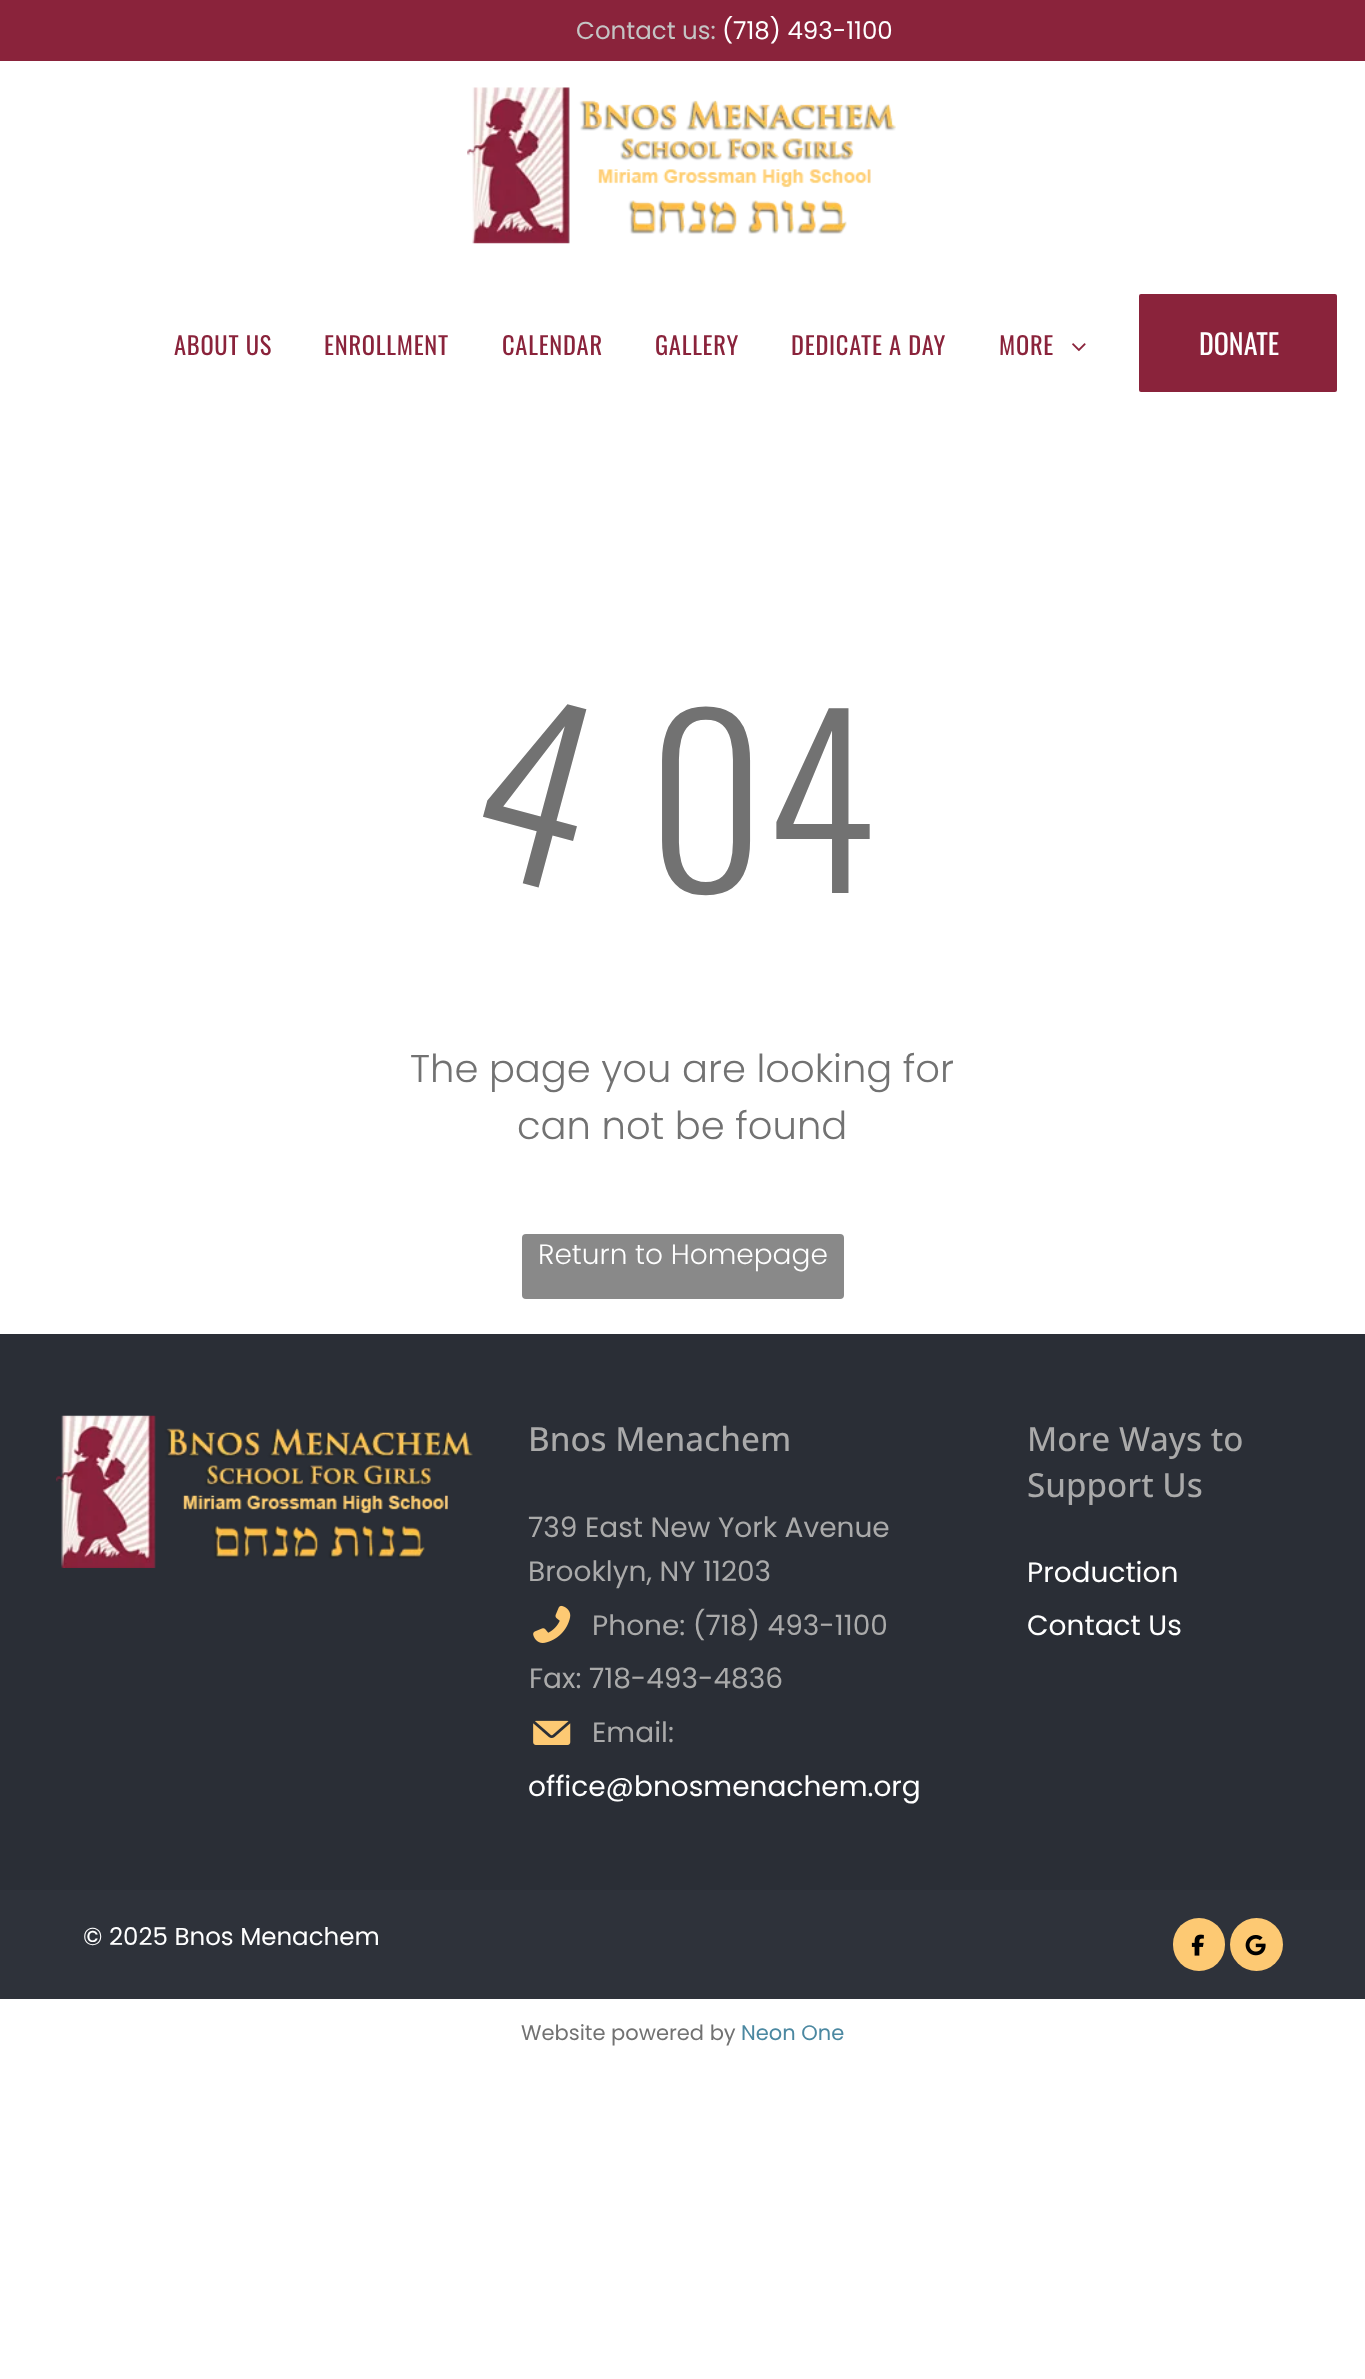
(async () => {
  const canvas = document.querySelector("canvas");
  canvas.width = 1365;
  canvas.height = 2379;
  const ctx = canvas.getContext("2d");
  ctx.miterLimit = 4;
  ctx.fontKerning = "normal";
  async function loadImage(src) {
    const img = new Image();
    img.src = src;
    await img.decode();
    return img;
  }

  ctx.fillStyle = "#ffffff";
  ctx.fillRect(0, 0, 1365, 2379);
  ctx.fillStyle = "#8a233b";
  ctx.fillRect(0, 0, 1365, 61);
  ctx.drawImage(await loadImage("img/1.png"), 467, 87, 429, 157);
  ctx.drawImage(await loadImage("img/2.png"), 1072, 343, 14, 9);
  ctx.beginPath();
  ctx.roundRect(1139, 294, 198, 98, 2);
  ctx.fill();
  ctx.fillStyle = "#898989";
  ctx.beginPath();
  ctx.roundRect(522, 1234, 322, 65, 4);
  ctx.fill();
  ctx.fillStyle = "#2a2e36";
  ctx.fillRect(0, 1334, 1365, 556);
  ctx.drawImage(await loadImage("img/3.png"), 56, 1415, 417, 153);
  ctx.drawImage(await loadImage("img/4.png"), 533, 1605, 38, 38);
  ctx.drawImage(await loadImage("img/5.png"), 533, 1720, 38, 25);
  ctx.fillStyle = "#2e323a";
  ctx.fillRect(0, 1890, 1365, 109);
  ctx.fillStyle = "#fdc973";
  ctx.beginPath();
  ctx.roundRect(1173, 1918, 52, 53, 26);
  ctx.fill();
  ctx.drawImage(await loadImage("img/6.png"), 1191, 1934, 13, 22);
  ctx.beginPath();
  ctx.arc(1256.5, 1944.5, 26.5, 0, Math.PI * 2);
  ctx.fill();
  ctx.drawImage(await loadImage("img/7.png"), 1245, 1935, 21, 21);
  ctx.font = "24.5px Poppins";
  ctx.fillStyle = "#c4c4c4";
  ctx.fillText("Contact us:", 576, 39);
  ctx.fillStyle = "#ffffff";
  ctx.fillText("(718) 493-1100", 722, 39);
  ctx.letterSpacing = "0.75px";
  ctx.font = "24.5px Oswald";
  ctx.fillStyle = "#8a233b";
  for (const [text, x, y] of [
    ["ABOUT US", 174, 355],
    ["ENROLLMENT", 324, 355],
    ["CALENDAR", 502, 355],
    ["GALLERY", 655, 355],
    ["DEDICATE A DAY", 791, 355],
    ["MORE", 999, 355],
  ]) {
    ctx.fillText(text, x, y);
  }
  ctx.letterSpacing = "0px";
  ctx.font = "28px Oswald";
  ctx.fillStyle = "#ffffff";
  ctx.fillText("DONATE", 1199, 355);
  ctx.font = "300 228px Oswald";
  ctx.fillStyle = "#727272";
  ctx.save();
  ctx.translate(458, 866);
  ctx.rotate(15 * Math.PI / 180);
  ctx.fillText("4", 0, 0);
  ctx.restore();
  ctx.fillText("04", 647, 893);
  ctx.font = "300 38.5px Poppins";
  ctx.fillText("The page you are looking for", 410, 1082);
  ctx.fillText("can not be found", 517, 1139);
  ctx.font = "300 28px Poppins";
  ctx.fillStyle = "#ffffff";
  ctx.fillText("Return to Homepage", 538, 1264);
  ctx.font = "500 33.25px Open Sans";
  ctx.fillStyle = "#aaaaaa";
  ctx.fillText("Bnos Menachem", 528, 1451);
  ctx.font = "28px Poppins";
  for (const [text, x, y] of [
    ["739 East New York Avenue", 528, 1537],
    ["Brooklyn, NY 11203", 528, 1581],
    ["Phone: (718) 493-1100", 592, 1635],
    ["Fax: 718-493-4836", 529, 1688],
    ["Email:", 592, 1742],
  ]) {
    ctx.fillText(text, x, y);
  }
  ctx.fillStyle = "#ffffff";
  ctx.fillText("office@bnosmenachem.org", 528, 1796);
  ctx.font = "500 33.25px Open Sans";
  ctx.fillStyle = "#aaaaaa";
  ctx.fillText("More Ways to", 1027, 1451);
  ctx.fillText("Support Us", 1027, 1497);
  ctx.font = "28px Poppins";
  ctx.fillStyle = "#ffffff";
  ctx.fillText("Production", 1027, 1582);
  ctx.fillText("Contact Us", 1027, 1635);
  ctx.font = "24.5px Poppins";
  ctx.fillText("© 2025 Bnos Menachem", 83, 1945);
  ctx.font = "21px Poppins";
  ctx.fillStyle = "#727272";
  ctx.fillText("Website powered by", 521, 2040);
  ctx.fillStyle = "#4b88a1";
  ctx.fillText("Neon One", 741, 2040);
})();
